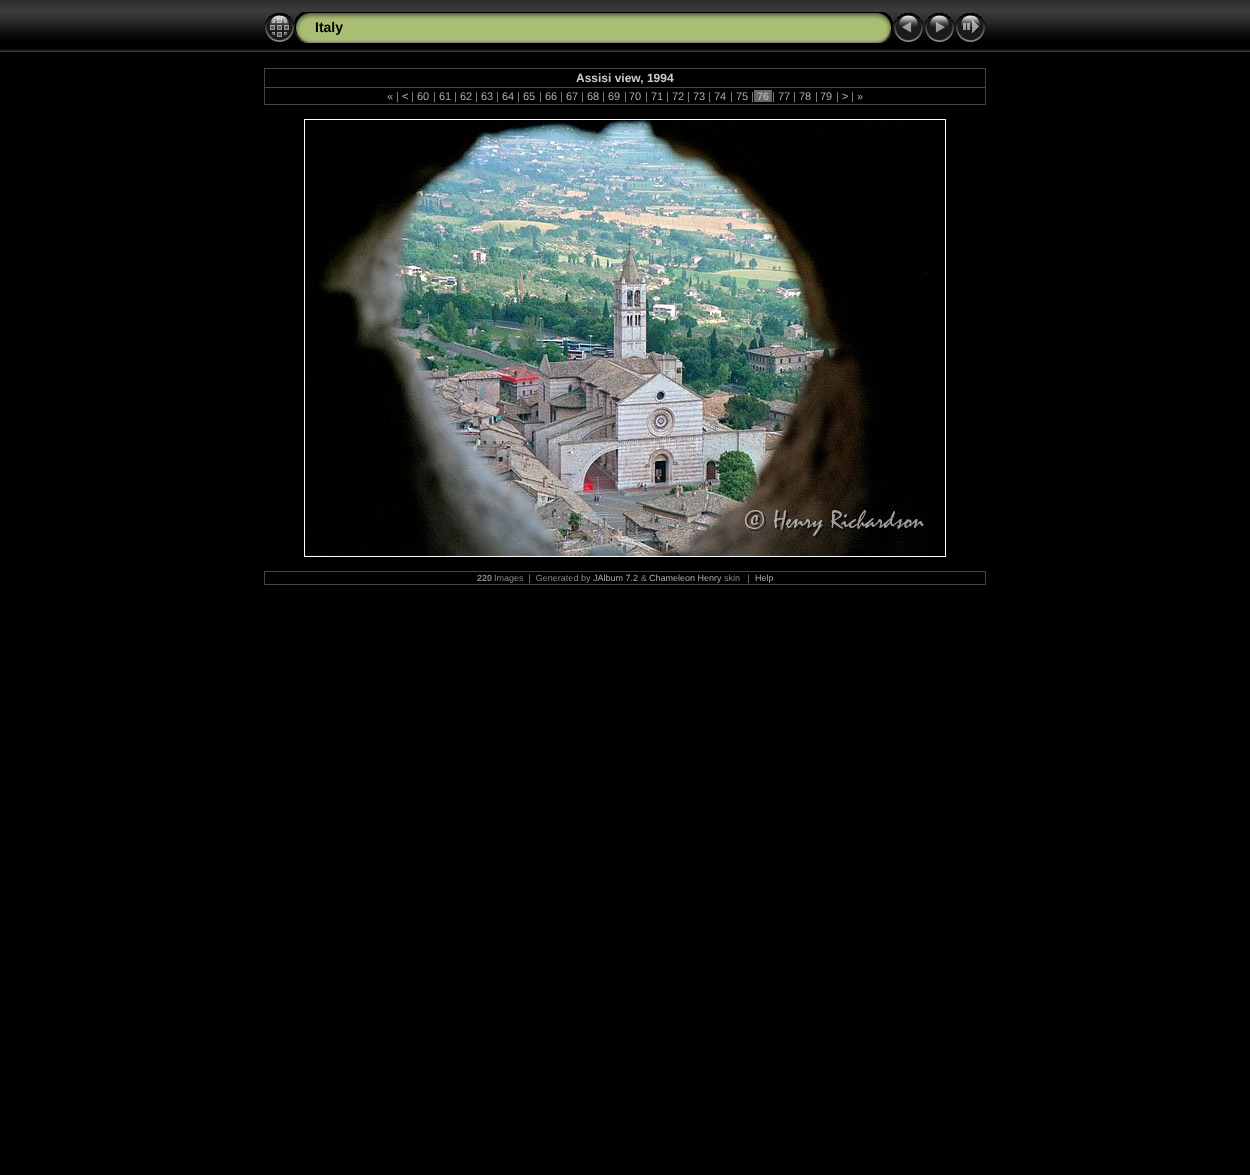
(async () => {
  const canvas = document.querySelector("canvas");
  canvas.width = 1250;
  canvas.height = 1175;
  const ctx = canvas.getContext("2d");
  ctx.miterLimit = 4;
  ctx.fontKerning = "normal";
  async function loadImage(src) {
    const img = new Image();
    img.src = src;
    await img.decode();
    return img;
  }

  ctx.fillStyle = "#000000";
  ctx.fillRect(0, 0, 1250, 1175);
  ctx.drawImage(await loadImage("img/1.png"), 0, 0, 1250, 52);
  ctx.drawImage(await loadImage("img/2.png"), 265, 13, 29, 29);
  ctx.drawImage(await loadImage("img/3.png"), 295, 12, 20, 31);
  ctx.drawImage(await loadImage("img/4.png"), 315, 12, 558, 31);
  ctx.drawImage(await loadImage("img/5.png"), 873, 12, 20, 31);
  ctx.drawImage(await loadImage("img/6.png"), 894, 13, 29, 29);
  ctx.drawImage(await loadImage("img/7.png"), 925, 13, 29, 29);
  ctx.drawImage(await loadImage("img/8.png"), 956, 13, 29, 29);
  for (const [x, y, w, h, color] of [
    [264, 68, 722, 1, "#444444"],
    [985, 68, 1, 37, "#444444"],
    [264, 104, 722, 1, "#444444"],
    [264, 68, 1, 37, "#444444"],
    [264, 87, 722, 1, "#444444"],
    [754, 90, 18, 12, "#666666"],
  ]) {
    ctx.fillStyle = color;
    ctx.fillRect(x, y, w, h);
  }
  ctx.strokeStyle = "#ffffff";
  ctx.strokeRect(304.5, 119.5, 641, 437);
  ctx.drawImage(await loadImage("img/9.png"), 305, 120, 624, 436);
  for (const [x, y, w, h, color] of [
    [264, 571, 722, 1, "#444444"],
    [985, 571, 1, 14, "#444444"],
    [264, 584, 722, 1, "#444444"],
    [264, 571, 1, 14, "#444444"],
  ]) {
    ctx.fillStyle = color;
    ctx.fillRect(x, y, w, h);
  }
  ctx.font = "bold 14px Liberation Sans";
  ctx.fillStyle = "#000000";
  ctx.fillText("Italy", 315, 32);
  ctx.font = "bold 12px Liberation Sans";
  ctx.fillStyle = "#cccccc";
  ctx.fillText("Assisi view, 1994", 576, 82);
  ctx.font = "11px Liberation Sans";
  ctx.fillStyle = "#aaaaaa";
  ctx.fillText("«", 387, 100);
  ctx.fillStyle = "#888888";
  ctx.fillText("|", 396, 100);
  ctx.fillStyle = "#aaaaaa";
  ctx.fillText("<", 402, 100);
  ctx.fillStyle = "#888888";
  ctx.fillText("|", 411, 100);
  ctx.fillStyle = "#aaaaaa";
  ctx.fillText("60", 417, 100);
  ctx.fillStyle = "#888888";
  ctx.fillText("|", 433, 100);
  ctx.fillStyle = "#aaaaaa";
  ctx.fillText("61", 439, 100);
  ctx.fillStyle = "#888888";
  ctx.fillText("|", 454, 100);
  ctx.fillStyle = "#aaaaaa";
  ctx.fillText("62", 460, 100);
  ctx.fillStyle = "#888888";
  ctx.fillText("|", 475, 100);
  ctx.fillStyle = "#aaaaaa";
  ctx.fillText("63", 481, 100);
  ctx.fillStyle = "#888888";
  ctx.fillText("|", 496, 100);
  ctx.fillStyle = "#aaaaaa";
  ctx.fillText("64", 502, 100);
  ctx.fillStyle = "#888888";
  ctx.fillText("|", 517, 100);
  ctx.fillStyle = "#aaaaaa";
  ctx.fillText("65", 523, 100);
  ctx.fillStyle = "#888888";
  ctx.fillText("|", 539, 100);
  ctx.fillStyle = "#aaaaaa";
  ctx.fillText("66", 545, 100);
  ctx.fillStyle = "#888888";
  ctx.fillText("|", 560, 100);
  ctx.fillStyle = "#aaaaaa";
  ctx.fillText("67", 566, 100);
  ctx.fillStyle = "#888888";
  ctx.fillText("|", 581, 100);
  ctx.fillStyle = "#aaaaaa";
  ctx.fillText("68", 587, 100);
  ctx.fillStyle = "#888888";
  ctx.fillText("|", 602, 100);
  ctx.fillStyle = "#aaaaaa";
  ctx.fillText("69", 608, 100);
  ctx.fillStyle = "#888888";
  ctx.fillText("|", 624, 100);
  ctx.fillStyle = "#aaaaaa";
  ctx.fillText("70", 629, 100);
  ctx.fillStyle = "#888888";
  ctx.fillText("|", 645, 100);
  ctx.fillStyle = "#aaaaaa";
  ctx.fillText("71", 651, 100);
  ctx.fillStyle = "#888888";
  ctx.fillText("|", 666, 100);
  ctx.fillStyle = "#aaaaaa";
  ctx.fillText("72", 672, 100);
  ctx.fillStyle = "#888888";
  ctx.fillText("|", 687, 100);
  ctx.fillStyle = "#aaaaaa";
  ctx.fillText("73", 693, 100);
  ctx.fillStyle = "#888888";
  ctx.fillText("|", 708, 100);
  ctx.fillStyle = "#aaaaaa";
  ctx.fillText("74", 714, 100);
  ctx.fillStyle = "#888888";
  ctx.fillText("|", 730, 100);
  ctx.fillStyle = "#aaaaaa";
  ctx.fillText("75", 736, 100);
  ctx.fillStyle = "#888888";
  ctx.fillText("|", 751, 100);
  ctx.font = "bold 11px Liberation Sans";
  ctx.fillStyle = "#aaaaaa";
  ctx.fillText("76", 757, 100);
  ctx.font = "11px Liberation Sans";
  ctx.fillStyle = "#888888";
  ctx.fillText("|", 772, 100);
  ctx.fillStyle = "#aaaaaa";
  ctx.fillText("77", 778, 100);
  ctx.fillStyle = "#888888";
  ctx.fillText("|", 793, 100);
  ctx.fillStyle = "#aaaaaa";
  ctx.fillText("78", 799, 100);
  ctx.fillStyle = "#888888";
  ctx.fillText("|", 815, 100);
  ctx.fillStyle = "#aaaaaa";
  ctx.fillText("79", 820, 100);
  ctx.fillStyle = "#888888";
  ctx.fillText("|", 836, 100);
  ctx.fillStyle = "#aaaaaa";
  ctx.fillText(">", 842, 100);
  ctx.fillStyle = "#888888";
  ctx.fillText("|", 851, 100);
  ctx.fillStyle = "#aaaaaa";
  ctx.fillText("»", 857, 100);
  ctx.font = "bold 9px Liberation Sans";
  ctx.fillStyle = "#888888";
  ctx.fillText("220", 477, 581);
  ctx.font = "9px Liberation Sans";
  ctx.fillText("Images  |  Generated by", 494, 581);
  ctx.fillStyle = "#aaaaaa";
  ctx.fillText("JAlbum 7.2", 593, 581);
  ctx.fillStyle = "#888888";
  ctx.fillText("&", 641, 581);
  ctx.fillStyle = "#aaaaaa";
  ctx.fillText("Chameleon Henry", 649, 581);
  ctx.fillStyle = "#888888";
  ctx.fillText("skin   |", 724, 581);
  ctx.fillStyle = "#aaaaaa";
  ctx.fillText("Help", 755, 581);
})();
